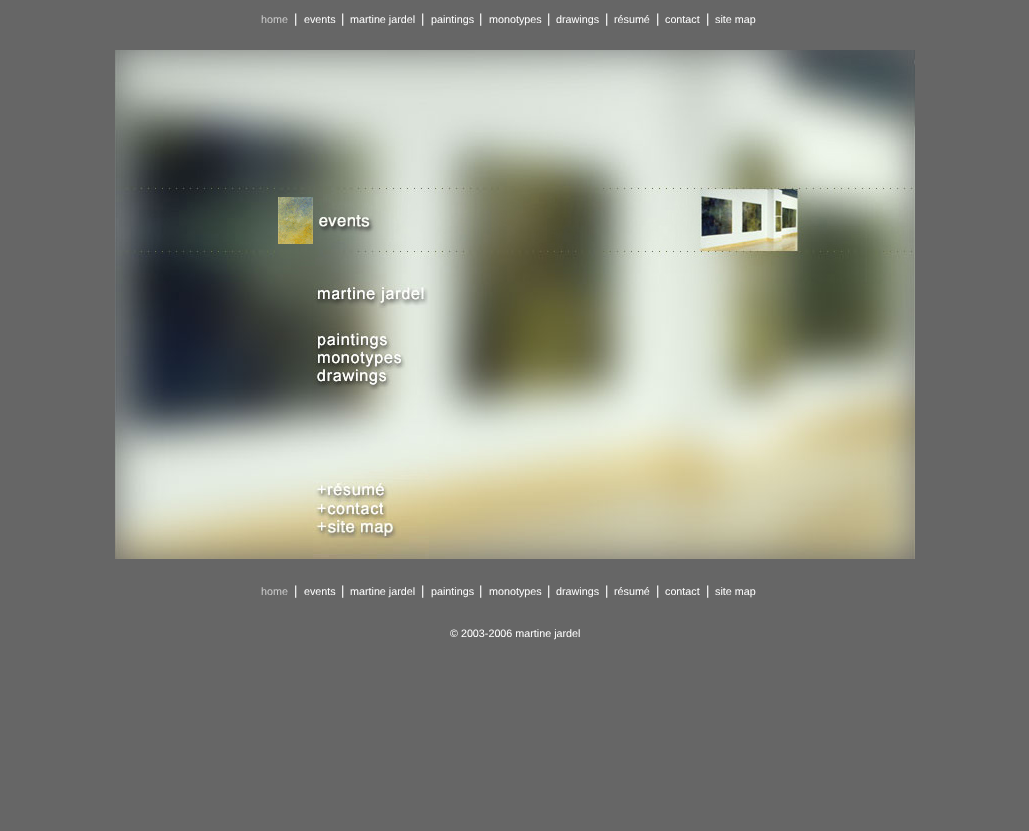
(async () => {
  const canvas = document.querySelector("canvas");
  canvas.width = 1029;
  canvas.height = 831;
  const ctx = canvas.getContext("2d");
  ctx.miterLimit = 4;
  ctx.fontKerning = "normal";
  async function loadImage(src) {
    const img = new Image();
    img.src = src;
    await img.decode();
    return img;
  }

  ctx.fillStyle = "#666666";
  ctx.fillRect(0, 0, 1029, 831);
  ctx.drawImage(await loadImage("img/1.png"), 115, 50, 800, 147);
  ctx.drawImage(await loadImage("img/2.png"), 115, 197, 163, 47);
  ctx.drawImage(await loadImage("img/3.png"), 278, 197, 35, 47);
  ctx.drawImage(await loadImage("img/4.png"), 313, 197, 116, 47);
  ctx.drawImage(await loadImage("img/5.png"), 429, 197, 486, 47);
  ctx.drawImage(await loadImage("img/6.png"), 115, 244, 800, 40);
  ctx.drawImage(await loadImage("img/7.png"), 115, 284, 198, 275);
  ctx.drawImage(await loadImage("img/8.png"), 313, 284, 116, 47);
  ctx.drawImage(await loadImage("img/9.png"), 429, 284, 486, 275);
  ctx.drawImage(await loadImage("img/10.png"), 313, 331, 116, 20);
  ctx.drawImage(await loadImage("img/11.png"), 313, 351, 116, 18);
  ctx.drawImage(await loadImage("img/12.png"), 313, 369, 116, 18);
  ctx.drawImage(await loadImage("img/13.png"), 313, 387, 116, 18);
  ctx.drawImage(await loadImage("img/14.png"), 313, 405, 116, 77);
  ctx.drawImage(await loadImage("img/15.png"), 313, 482, 116, 18);
  ctx.drawImage(await loadImage("img/16.png"), 313, 500, 116, 18);
  ctx.drawImage(await loadImage("img/17.png"), 313, 518, 116, 20);
  ctx.drawImage(await loadImage("img/18.png"), 313, 538, 116, 21);
  ctx.font = "10.75px Liberation Sans";
  ctx.fillStyle = "#cccccc";
  ctx.fillText("home", 261, 23);
  ctx.font = "13px Liberation Sans";
  ctx.fillStyle = "#ffffff";
  ctx.fillText("|", 294, 23);
  ctx.font = "10.75px Liberation Sans";
  ctx.fillText("events", 304, 23);
  ctx.font = "13px Liberation Sans";
  ctx.fillText("|", 341, 23);
  ctx.font = "10.75px Liberation Sans";
  ctx.fillText("martine jardel", 350, 23);
  ctx.font = "13px Liberation Sans";
  ctx.fillText("|", 421, 23);
  ctx.font = "10.75px Liberation Sans";
  ctx.fillText("paintings", 431, 23);
  ctx.font = "13px Liberation Sans";
  ctx.fillText("|", 479, 23);
  ctx.font = "10.75px Liberation Sans";
  ctx.fillText("monotypes", 489, 23);
  ctx.font = "13px Liberation Sans";
  ctx.fillText("|", 547, 23);
  ctx.font = "10.75px Liberation Sans";
  ctx.fillText("drawings", 556, 23);
  ctx.font = "13px Liberation Sans";
  ctx.fillText("|", 605, 23);
  ctx.font = "10.75px Liberation Sans";
  ctx.fillText("résumé", 614, 23);
  ctx.font = "13px Liberation Sans";
  ctx.fillText("|", 656, 23);
  ctx.font = "10.75px Liberation Sans";
  ctx.fillText("contact", 665, 23);
  ctx.font = "13px Liberation Sans";
  ctx.fillText("|", 706, 23);
  ctx.font = "10.75px Liberation Sans";
  ctx.fillText("site map", 715, 23);
  ctx.fillStyle = "#cccccc";
  ctx.fillText("home", 261, 595);
  ctx.font = "13px Liberation Sans";
  ctx.fillStyle = "#ffffff";
  ctx.fillText("|", 294, 595);
  ctx.font = "10.75px Liberation Sans";
  ctx.fillText("events", 304, 595);
  ctx.font = "13px Liberation Sans";
  ctx.fillText("|", 341, 595);
  ctx.font = "10.75px Liberation Sans";
  ctx.fillText("martine jardel", 350, 595);
  ctx.font = "13px Liberation Sans";
  ctx.fillText("|", 421, 595);
  ctx.font = "10.75px Liberation Sans";
  ctx.fillText("paintings", 431, 595);
  ctx.font = "13px Liberation Sans";
  ctx.fillText("|", 479, 595);
  ctx.font = "10.75px Liberation Sans";
  ctx.fillText("monotypes", 489, 595);
  ctx.font = "13px Liberation Sans";
  ctx.fillText("|", 547, 595);
  ctx.font = "10.75px Liberation Sans";
  ctx.fillText("drawings", 556, 595);
  ctx.font = "13px Liberation Sans";
  ctx.fillText("|", 605, 595);
  ctx.font = "10.75px Liberation Sans";
  ctx.fillText("résumé", 614, 595);
  ctx.font = "13px Liberation Sans";
  ctx.fillText("|", 656, 595);
  ctx.font = "10.75px Liberation Sans";
  ctx.fillText("contact", 665, 595);
  ctx.font = "13px Liberation Sans";
  ctx.fillText("|", 706, 595);
  ctx.font = "10.75px Liberation Sans";
  ctx.fillText("site map", 715, 595);
  ctx.fillText("© 2003-2006 martine jardel", 450, 637);
})();
